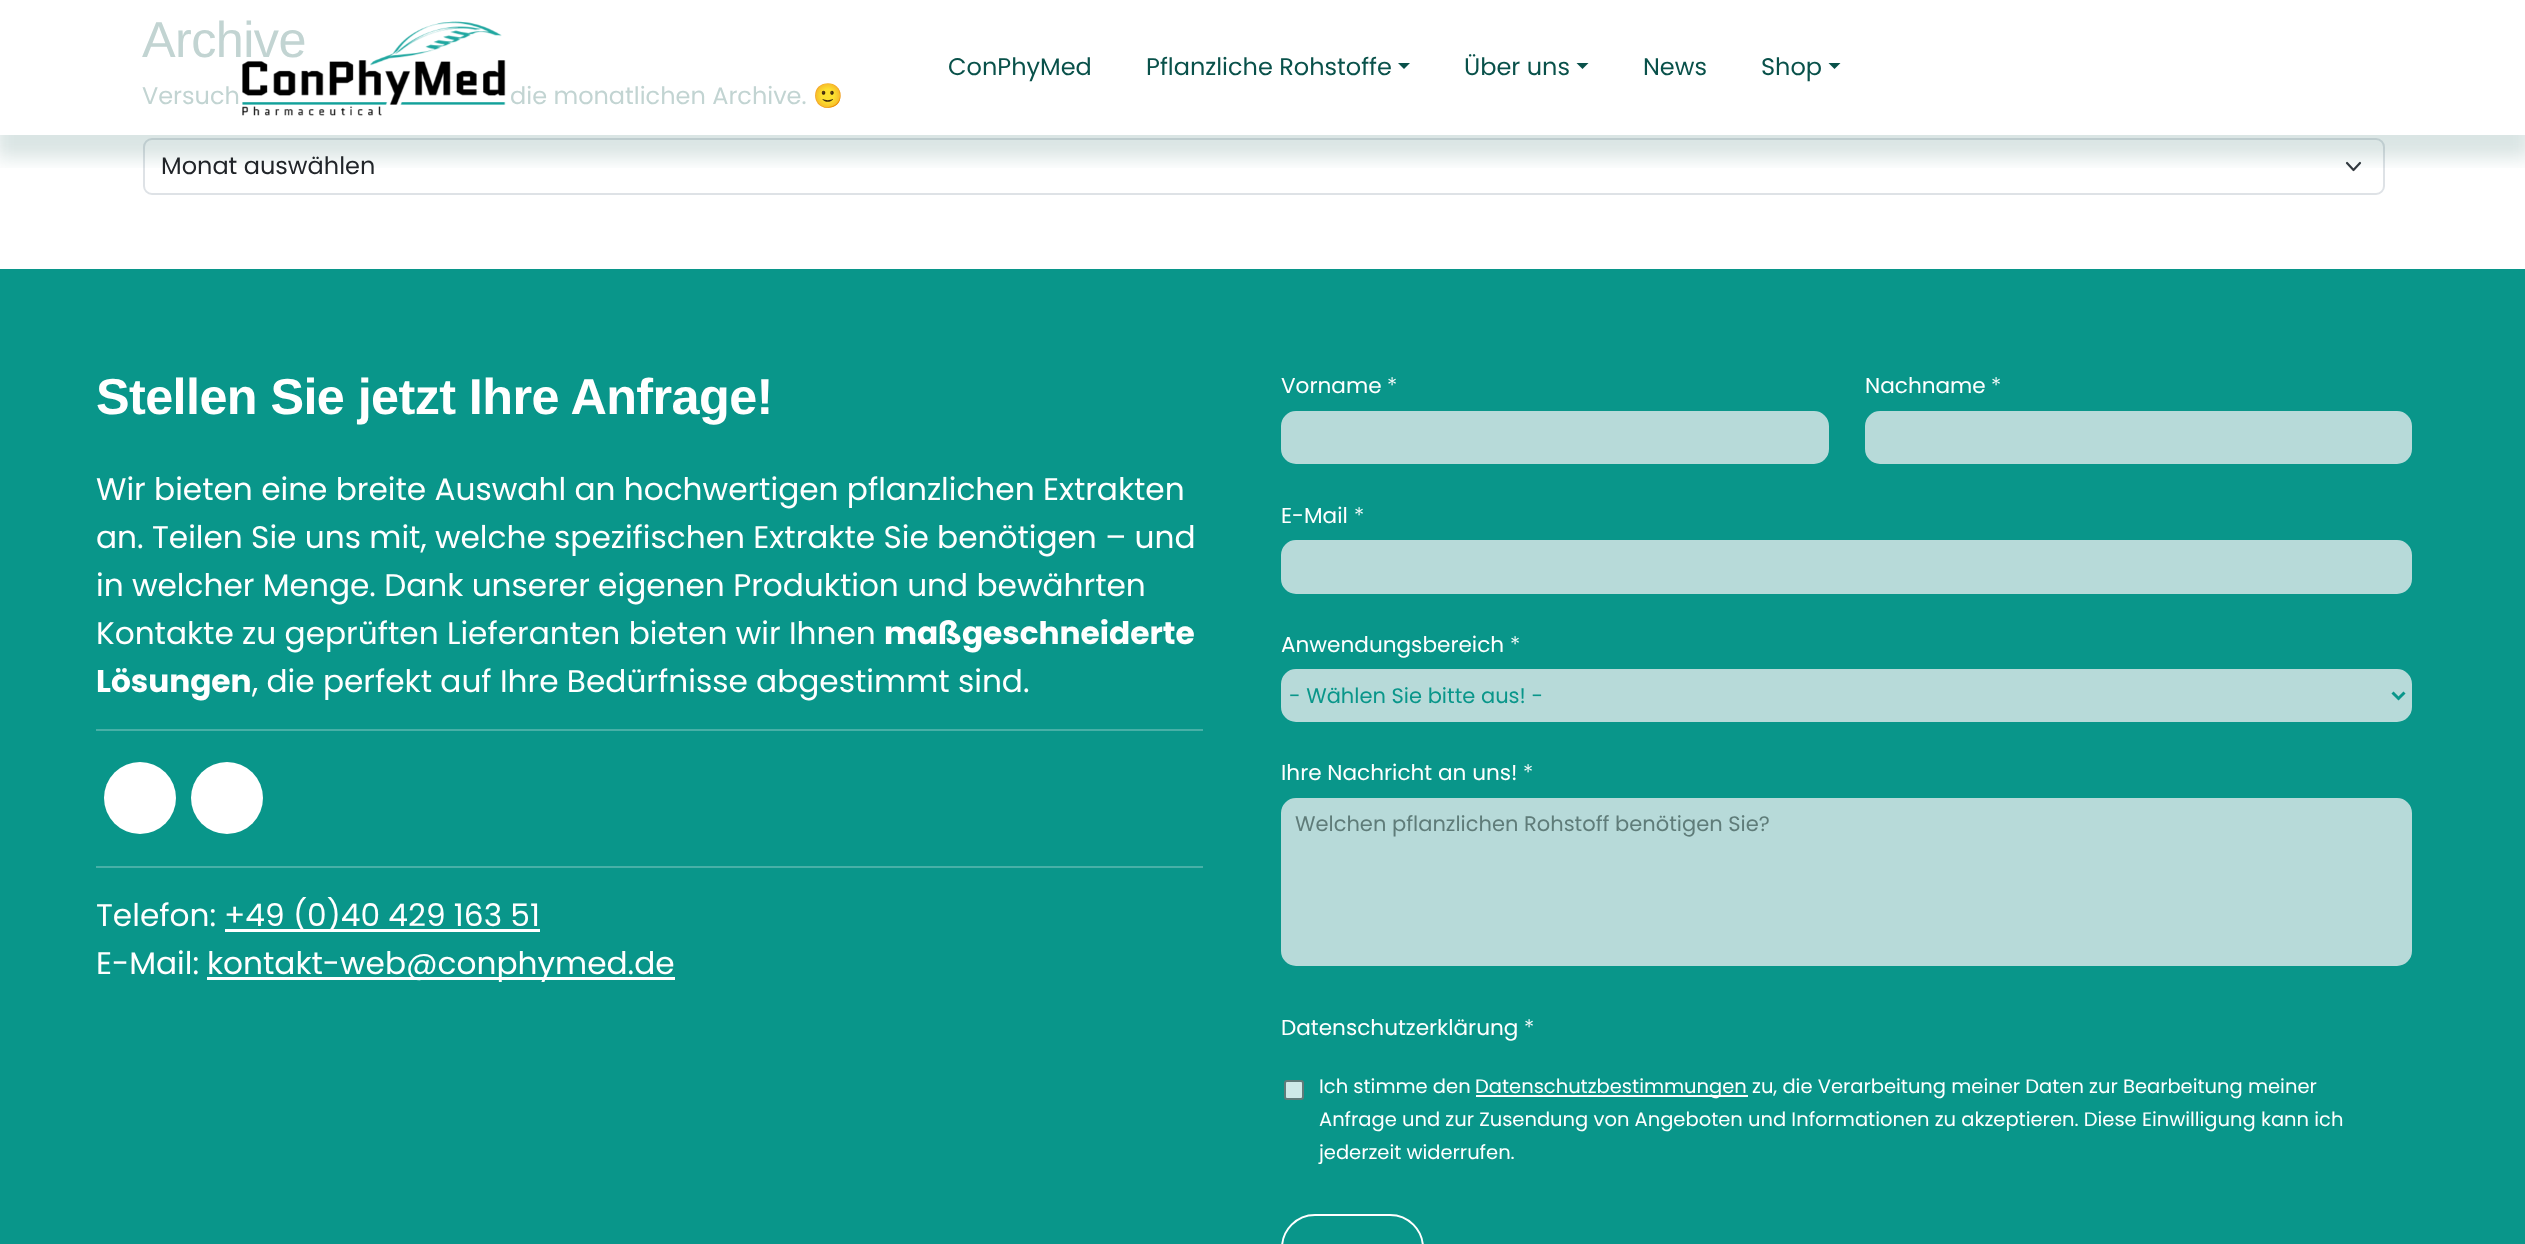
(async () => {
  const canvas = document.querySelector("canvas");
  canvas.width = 2525;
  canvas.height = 1244;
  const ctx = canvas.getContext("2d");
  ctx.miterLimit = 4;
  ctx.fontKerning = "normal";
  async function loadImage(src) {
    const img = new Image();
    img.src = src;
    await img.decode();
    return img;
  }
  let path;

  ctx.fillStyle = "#ffffff";
  ctx.fillRect(0, 0, 2525, 1244);
  path = new Path2D("M2347 163L2353.5 170L2360 163");
  ctx.strokeStyle = "#343a40";
  ctx.lineWidth = 2.2;
  ctx.lineCap = "round";
  ctx.lineJoin = "round";
  ctx.stroke(path);
  ctx.beginPath();
  ctx.roundRect(144, 139, 2240, 55, 8);
  ctx.strokeStyle = "#dee2e6";
  ctx.lineWidth = 2;
  ctx.lineJoin = "miter";
  ctx.stroke();
  ctx.save();
  ctx.beginPath();
  ctx.rect(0, 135, 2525, 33);
  ctx.clip();
  ctx.fillStyle = "rgba(9, 81, 74, 0.15)";
  ctx.filter = "blur(9px)";
  ctx.beginPath();
  ctx.rect(-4, 14, 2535, 144);
  ctx.fill();
  ctx.filter = "none";
  ctx.restore();
  ctx.fillStyle = "#09514a";
  path = new Path2D("M1398 63H1410L1404 69Z");
  ctx.fill(path);
  path = new Path2D("M1576.5 63H1588.5L1582.5 69Z");
  ctx.fill(path);
  path = new Path2D("M1828.5 63H1840.5L1834.5 69Z");
  ctx.fill(path);
  ctx.fillStyle = "#09968a";
  ctx.fillRect(0, 269, 2525, 975);
  ctx.fillStyle = "#47b0a7";
  ctx.fillRect(96, 729, 1107, 2);
  ctx.fillStyle = "#ffffff";
  ctx.beginPath();
  ctx.arc(140, 798, 36, 0, Math.PI * 2);
  ctx.fill();
  ctx.beginPath();
  ctx.arc(227, 798, 36, 0, Math.PI * 2);
  ctx.fill();
  for (const [x, y, w, h, color] of [
    [96, 866, 1107, 2, "#47b0a7"],
    [225, 929, 315, 3, "#ffffff"],
    [207, 977, 468, 3, "#ffffff"],
  ]) {
    ctx.fillStyle = color;
    ctx.fillRect(x, y, w, h);
  }
  ctx.fillStyle = "#b7dad9";
  ctx.beginPath();
  ctx.roundRect(1282, 412, 546, 51, 14);
  ctx.fill();
  ctx.strokeStyle = "#b7dad9";
  ctx.stroke();
  ctx.beginPath();
  ctx.roundRect(1866, 412, 545, 51, 14);
  ctx.fill();
  ctx.stroke();
  ctx.beginPath();
  ctx.roundRect(1282, 541, 1129, 52, 14);
  ctx.fill();
  ctx.stroke();
  ctx.beginPath();
  ctx.roundRect(1282, 670, 1129, 51, 14);
  ctx.fill();
  ctx.stroke();
  path = new Path2D("M2392.5 692.5L2398.5 698.5L2404.5 692.5");
  ctx.strokeStyle = "#09968a";
  ctx.lineWidth = 3;
  ctx.lineCap = "butt";
  ctx.stroke(path);
  ctx.beginPath();
  ctx.roundRect(1282, 799, 1129, 166, 14);
  ctx.fill();
  ctx.strokeStyle = "#b7dad9";
  ctx.lineWidth = 2;
  ctx.stroke();
  ctx.fillStyle = "#ceeae8";
  ctx.beginPath();
  ctx.roundRect(1285, 1081, 18, 18, 2);
  ctx.fill();
  ctx.strokeStyle = "#607c7a";
  ctx.stroke();
  ctx.fillStyle = "#ffffff";
  ctx.fillRect(1476, 1095, 272, 2);
  ctx.beginPath();
  ctx.roundRect(1282, 1215, 141, 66, 35);
  ctx.strokeStyle = "#ffffff";
  ctx.stroke();
  ctx.letterSpacing = "-0.6px";
  ctx.font = "50.4px Liberation Sans";
  ctx.fillStyle = "#c2d4d2";
  ctx.fillText("Archive", 142, 57);
  ctx.letterSpacing = "0px";
  ctx.font = "24px Poppins";
  ctx.fillText("Versuch", 142, 104);
  ctx.fillText("die monatlichen Archive.", 510, 104);
  ctx.font = "24px Noto Color Emoji";
  ctx.fillText("🙂", 813, 104);
  ctx.font = "24px Poppins";
  ctx.fillStyle = "#212529";
  ctx.fillText("Monat auswählen", 161, 174);
  ctx.drawImage(await loadImage("img/1.png"), 242, 21, 264, 95);
  ctx.fillStyle = "#09514a";
  for (const [text, x, y] of [
    ["ConPhyMed", 948, 75],
    ["Pflanzliche Rohstoffe", 1146, 75],
    ["Über uns", 1464, 75],
    ["News", 1643, 75],
    ["Shop", 1761, 75],
  ]) {
    ctx.fillText(text, x, y);
  }
  ctx.letterSpacing = "-0.6px";
  ctx.font = "bold 50.4px Liberation Sans";
  ctx.fillStyle = "#ffffff";
  ctx.fillText("Stellen Sie jetzt Ihre Anfrage!", 96, 414);
  ctx.letterSpacing = "0px";
  ctx.font = "31.2px Poppins";
  for (const [text, x, y] of [
    ["Wir bieten eine breite Auswahl an hochwertigen pflanzlichen Extrakten", 96, 500],
    ["an. Teilen Sie uns mit, welche spezifischen Extrakte Sie benötigen – und", 96, 548],
    ["in welcher Menge. Dank unserer eigenen Produktion und bewährten", 96, 596],
    ["Kontakte zu geprüften Lieferanten bieten wir Ihnen", 96, 644],
  ]) {
    ctx.fillText(text, x, y);
  }
  ctx.font = "bold 31.2px Poppins";
  ctx.fillText("maßgeschneiderte", 884, 644);
  ctx.fillText("Lösungen", 96, 692);
  ctx.font = "31.2px Poppins";
  for (const [text, x, y] of [
    [", die perfekt auf Ihre Bedürfnisse abgestimmt sind.", 252, 692],
    ["Telefon:", 96, 926],
    ["+49 (0)40 429 163 51", 224, 926],
    ["E-Mail:", 96, 974],
    ["kontakt-web@conphymed.de", 207, 974],
  ]) {
    ctx.fillText(text, x, y);
  }
  ctx.font = "21.6px Poppins";
  ctx.fillText("Vorname", 1281, 393);
  ctx.font = "300 21.6px Poppins";
  ctx.fillText("*", 1387, 393);
  ctx.font = "21.6px Poppins";
  ctx.fillText("Nachname", 1865, 393);
  ctx.font = "300 21.6px Poppins";
  ctx.fillText("*", 1991, 393);
  ctx.font = "21.6px Poppins";
  ctx.fillText("E-Mail", 1281, 523);
  ctx.font = "300 21.6px Poppins";
  ctx.fillText("*", 1354, 523);
  ctx.font = "21.6px Poppins";
  ctx.fillText("Anwendungsbereich", 1281, 652);
  ctx.font = "300 21.6px Poppins";
  ctx.fillText("*", 1510, 652);
  ctx.font = "21px Poppins";
  ctx.fillStyle = "#09968a";
  ctx.fillText("- Wählen Sie bitte aus! -", 1289, 703);
  ctx.font = "21.6px Poppins";
  ctx.fillStyle = "#ffffff";
  ctx.fillText("Ihre Nachricht an uns!", 1281, 780);
  ctx.font = "300 21.6px Poppins";
  ctx.fillText("*", 1523, 780);
  ctx.font = "21px Poppins";
  ctx.fillStyle = "#5f7c79";
  ctx.fillText("Welchen pflanzlichen Rohstoff benötigen Sie?", 1295, 831);
  ctx.font = "21.6px Poppins";
  ctx.fillStyle = "#ffffff";
  ctx.fillText("Datenschutzerklärung", 1281, 1035);
  ctx.font = "300 21.6px Poppins";
  ctx.fillText("*", 1524, 1035);
  ctx.font = "19.5px Poppins";
  for (const [text, x, y] of [
    ["Ich stimme den", 1319, 1093],
    ["Datenschutzbestimmungen zu, die Verarbeitung meiner Daten zur Bearbeitung meiner", 1475, 1093],
    ["Anfrage und zur Zusendung von Angeboten und Informationen zu akzeptieren. Diese Einwilligung kann ich", 1319, 1126],
    ["jederzeit widerrufen.", 1319, 1159],
  ]) {
    ctx.fillText(text, x, y);
  }
})();
